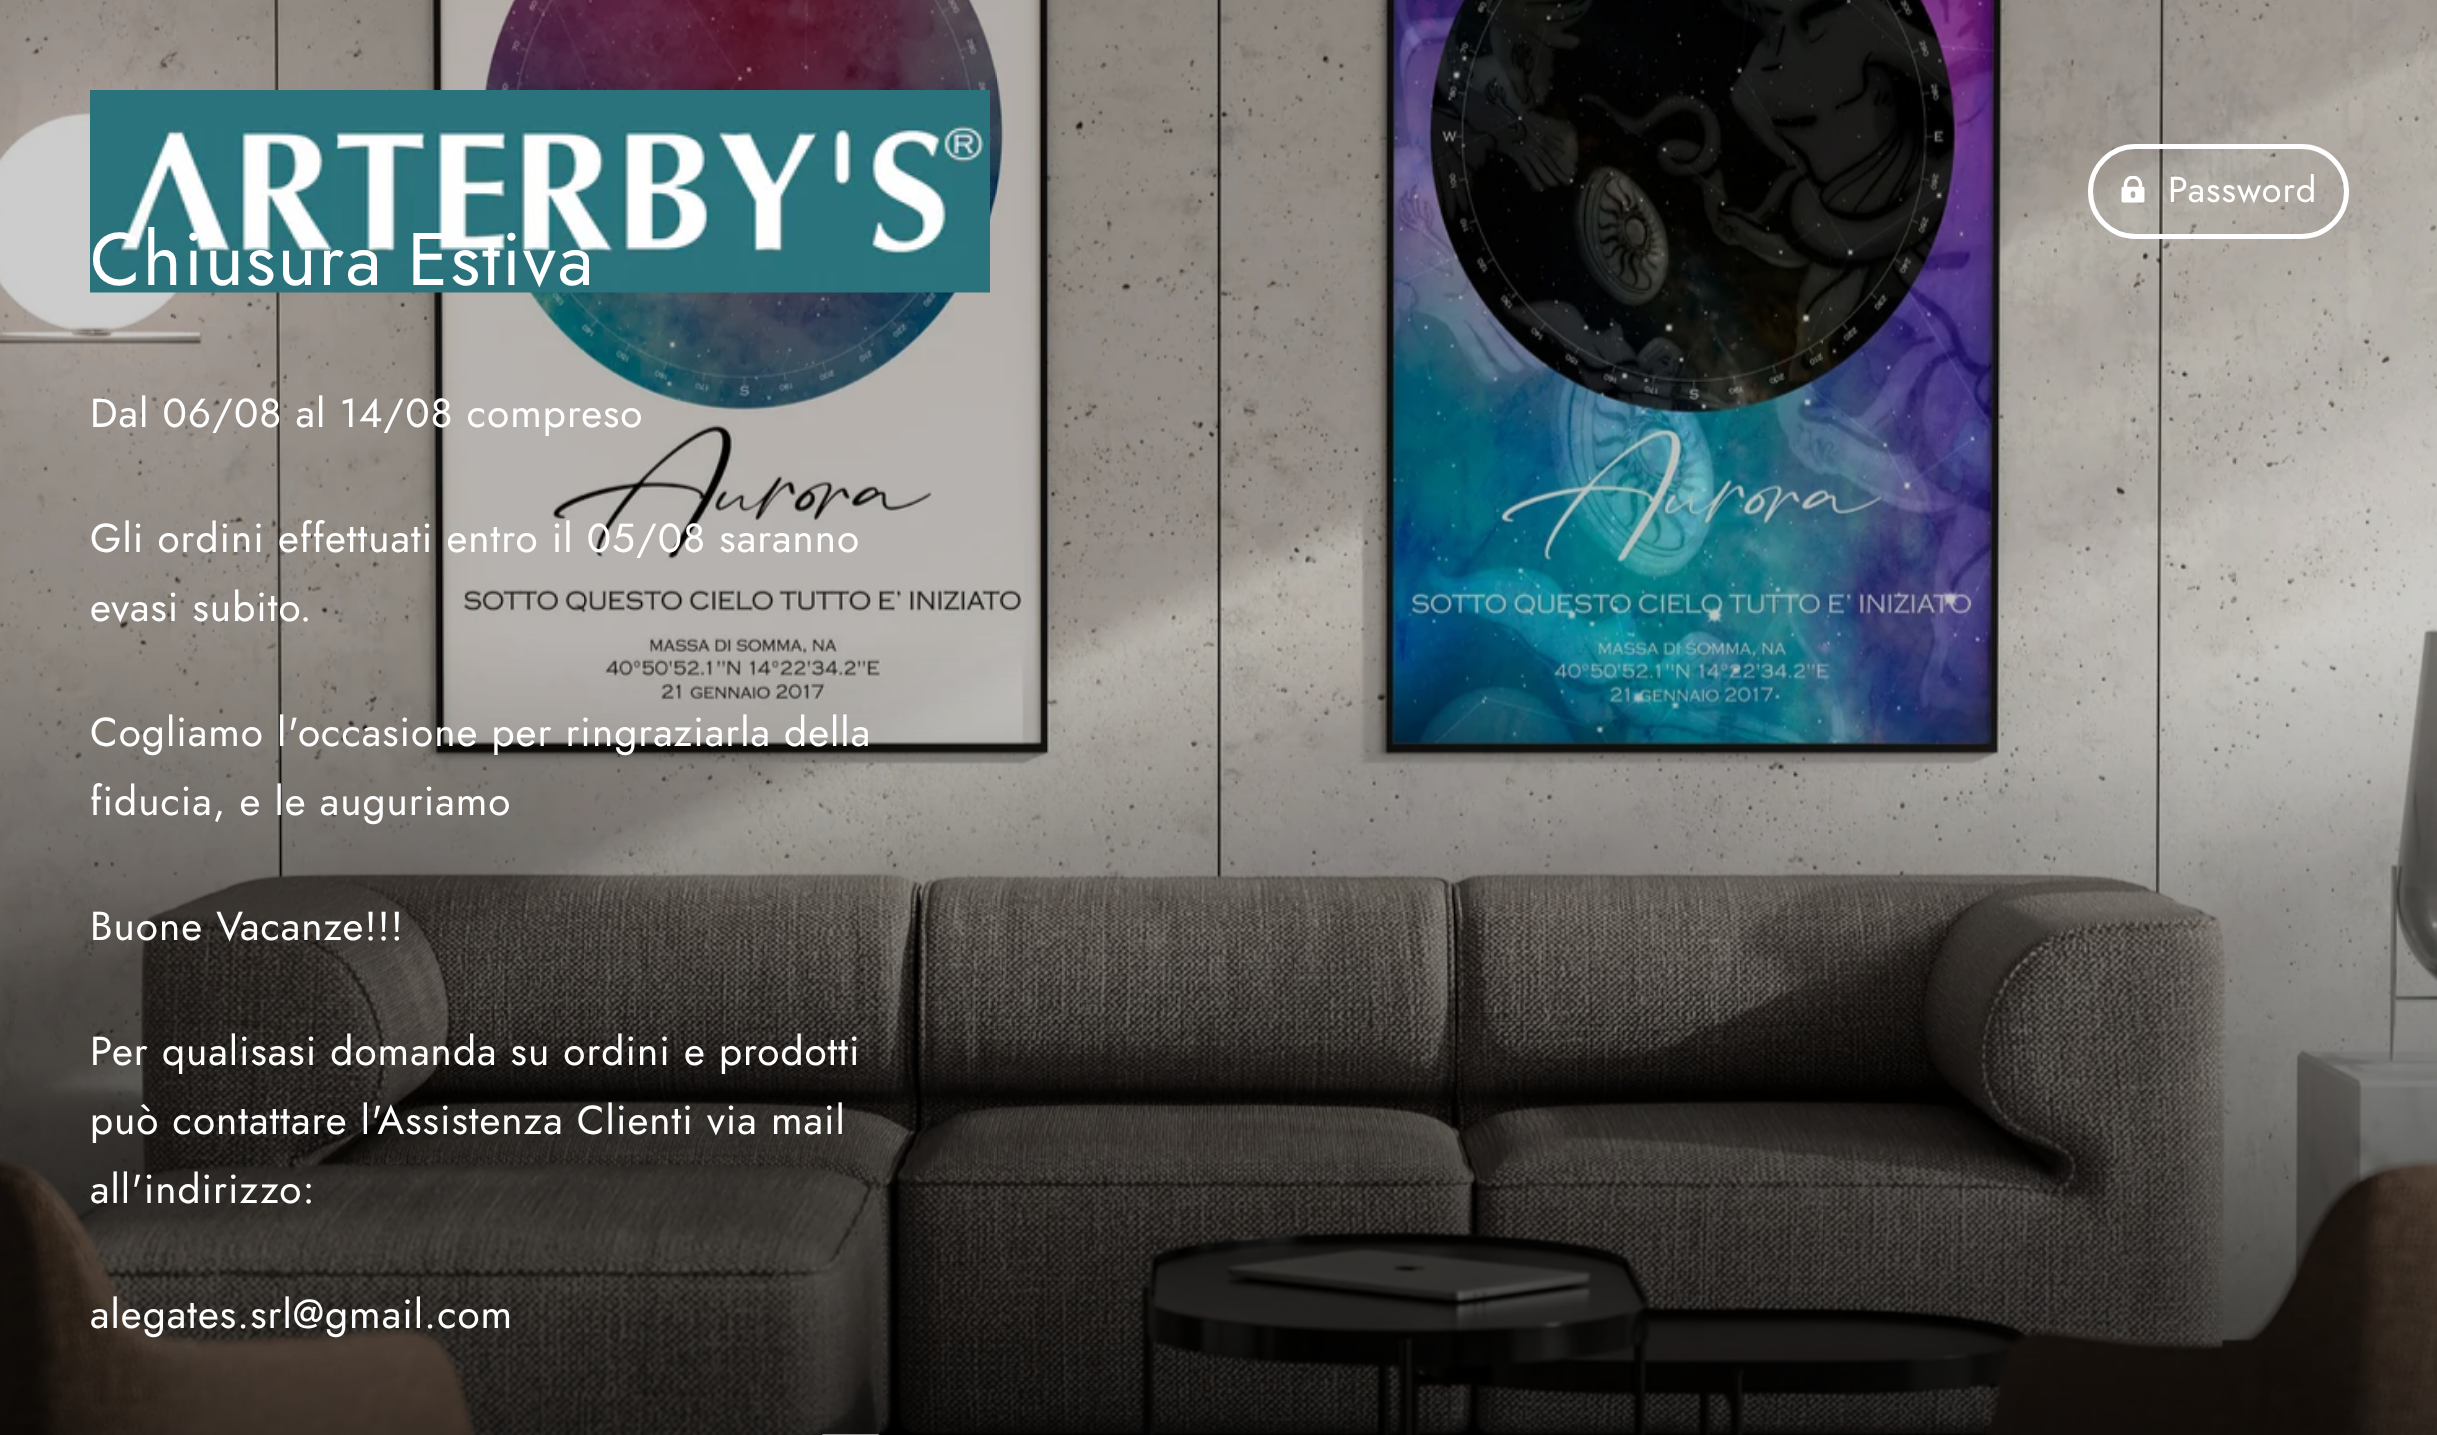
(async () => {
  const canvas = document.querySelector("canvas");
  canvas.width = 2437;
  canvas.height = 1435;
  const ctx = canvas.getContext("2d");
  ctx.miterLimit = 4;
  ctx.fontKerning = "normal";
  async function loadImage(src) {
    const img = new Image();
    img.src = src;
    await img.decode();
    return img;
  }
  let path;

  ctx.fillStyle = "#ffffff";
  ctx.fillRect(0, 0, 2437, 1435);
  ctx.drawImage(await loadImage("img/3.png"), 0, 0, 2437, 1435);
  ctx.drawImage(await loadImage("img/1.png"), 90, 90, 900, 203);
  ctx.beginPath();
  ctx.roundRect(2090.5, 146.5, 256, 90, 45);
  ctx.strokeStyle = "#ffffff";
  ctx.lineWidth = 5;
  ctx.stroke();
  ctx.drawImage(await loadImage("img/2.png"), 2121, 176, 24, 27);
  path = new Path2D("M876.5 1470.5H824.5V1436.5H876.5ZM824.5 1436.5L846 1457H854L876.5 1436.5M842 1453L825 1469.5M876 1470.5L858.5 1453");
  ctx.lineWidth = 4.2;
  ctx.stroke(path);
  ctx.letterSpacing = "1px";
  ctx.font = "36px Jost";
  ctx.fillText("Password", 2168, 202);
  ctx.letterSpacing = "1.9px";
  ctx.font = "74.25px Jost";
  ctx.fillText("Chiusura Estiva", 90, 285);
  ctx.letterSpacing = "1px";
  ctx.font = "40.5px Jost";
  for (const [text, x, y] of [
    ["Dal 06/08 al 14/08 compreso", 90, 427],
    ["Gli ordini effettuati entro il 05/08 saranno", 90, 552],
    ["evasi subito.", 90, 621],
    ["Cogliamo l'occasione per ringraziarla della", 90, 746],
    ["fiducia, e le auguriamo", 90, 815],
    ["Buone Vacanze!!!", 90, 940],
    ["Per qualisasi domanda su ordini e prodotti", 90, 1065],
    ["può contattare l'Assistenza Clienti via mail", 90, 1134],
    ["all'indirizzo:", 90, 1203],
    ["alegates.srl@gmail.com", 90, 1328],
  ]) {
    ctx.fillText(text, x, y);
  }
})();
